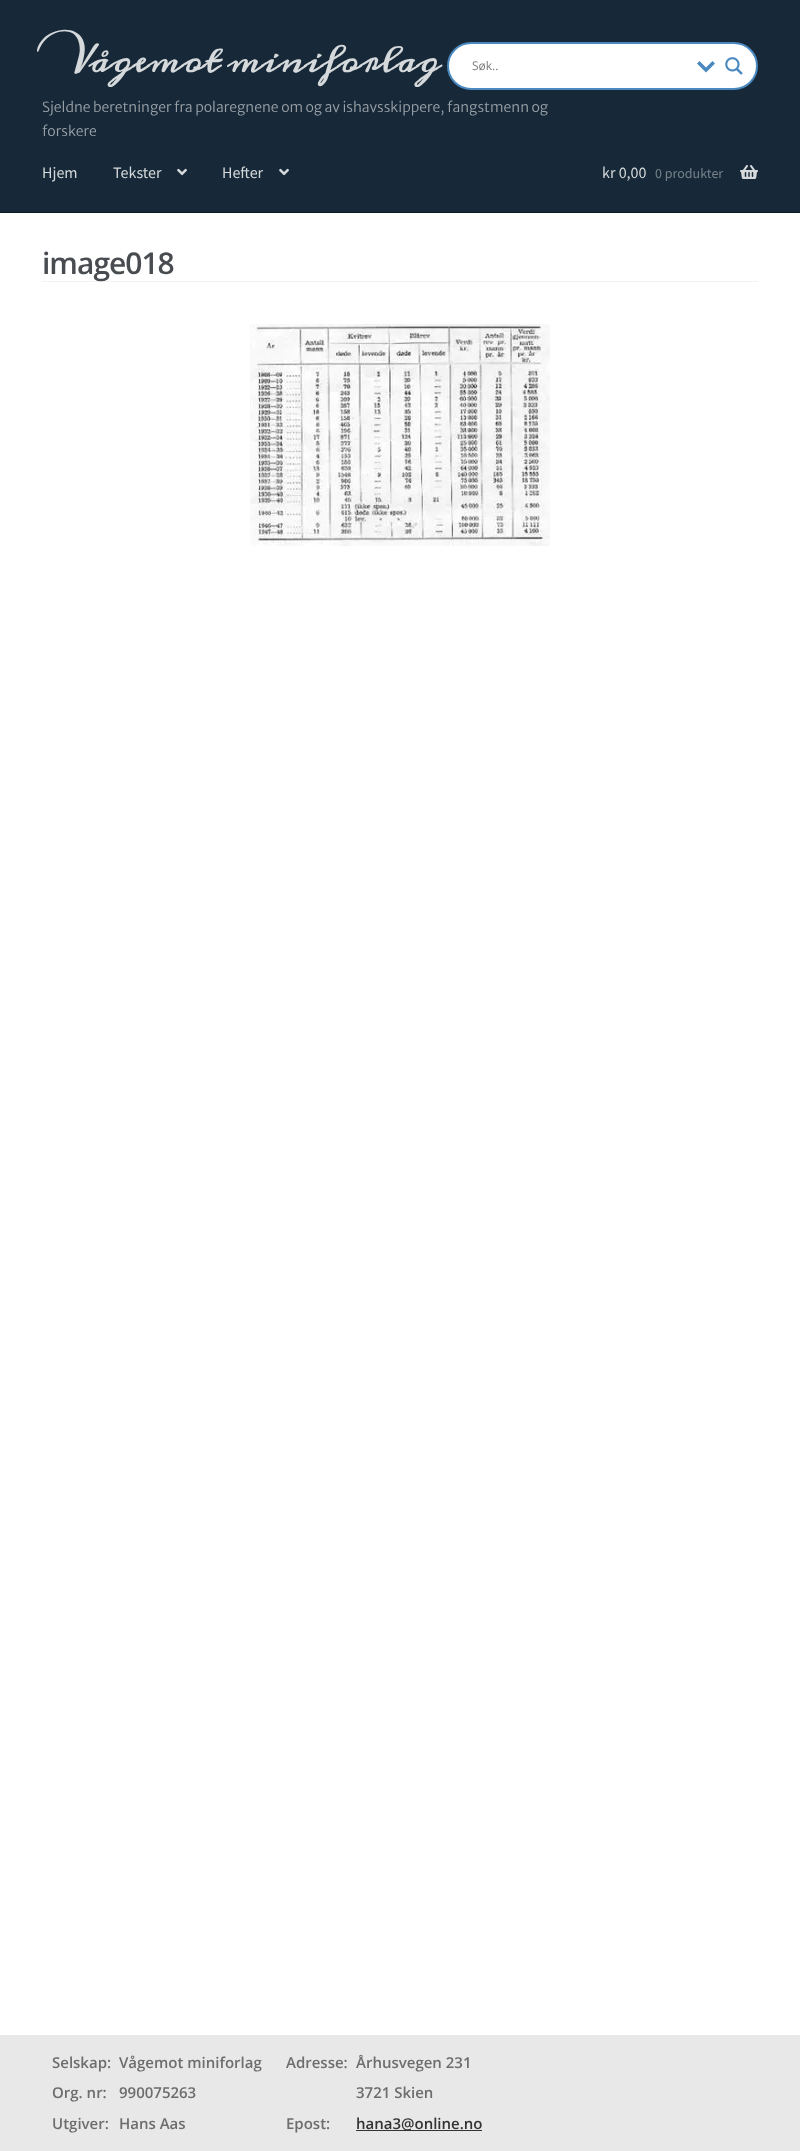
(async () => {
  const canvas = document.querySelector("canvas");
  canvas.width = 800;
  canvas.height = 2151;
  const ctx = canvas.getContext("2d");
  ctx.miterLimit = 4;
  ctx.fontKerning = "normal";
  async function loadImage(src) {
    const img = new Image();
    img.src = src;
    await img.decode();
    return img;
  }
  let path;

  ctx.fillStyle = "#ffffff";
  ctx.fillRect(0, 0, 800, 2151);
  ctx.fillStyle = "#172938";
  ctx.fillRect(0, 0, 800, 212);
  ctx.fillStyle = "#081a29";
  ctx.fillRect(0, 212, 800, 1);
  ctx.fillStyle = "#ffffff";
  ctx.beginPath();
  ctx.roundRect(448, 43, 309, 46, 23);
  ctx.fill();
  ctx.strokeStyle = "#4a89bf";
  ctx.lineWidth = 2;
  ctx.stroke();
  ctx.fillStyle = "#4a89bf";
  path = new Path2D("M712.5 61L715 63.5L706 72.5L697 63.5L699.5 61L706 67.5Z");
  ctx.fill(path);
  ctx.drawImage(await loadImage("img/1.png"), 725, 57, 18, 18);
  ctx.drawImage(await loadImage("img/2.png"), 177, 168, 10, 8);
  ctx.drawImage(await loadImage("img/2.png"), 279, 168, 10, 8);
  ctx.drawImage(await loadImage("img/3.png"), 740, 165, 18, 14);
  ctx.fillStyle = "#f2f2f2";
  ctx.fillRect(42, 281, 716, 1);
  ctx.drawImage(await loadImage("img/4.png"), 250, 324, 300, 222);
  ctx.fillStyle = "#e8e8e8";
  ctx.fillRect(0, 2035, 800, 116);
  ctx.fillStyle = "#333333";
  ctx.fillRect(356, 2130, 126, 1);
  ctx.letterSpacing = "-1px";
  ctx.font = "bold 32px Meddon";
  ctx.fillStyle = "#d5d9db";
  ctx.fillText("Vågemot miniforlag", 62, 72);
  ctx.letterSpacing = "0px";
  ctx.font = "300 14px Merriweather Sans";
  ctx.fillStyle = "#9aa0a7";
  ctx.fillText("Sjeldne beretninger fra polaregnene om og av ishavsskippere, fangstmenn og", 42, 112);
  ctx.fillText("forskere", 42, 136);
  ctx.font = "12px Open Sans";
  ctx.fillStyle = "#7d7d7d";
  ctx.fillText("Søk..", 472, 70);
  ctx.font = "16px Source Sans Pro";
  ctx.fillStyle = "#d5d9db";
  for (const [text, x, y] of [
    ["Hjem", 42, 178],
    ["Tekster", 113, 178],
    ["Hefter", 222, 178],
    ["kr 0,00", 602, 178],
  ]) {
    ctx.fillText(text, x, y);
  }
  ctx.font = "14px Source Sans Pro";
  ctx.fillStyle = "#76818a";
  ctx.fillText("0 produkter", 655, 178);
  ctx.letterSpacing = "-1px";
  ctx.font = "600 30px Open Sans";
  ctx.fillStyle = "#484c51";
  ctx.fillText("image018", 42, 274);
  ctx.letterSpacing = "0px";
  ctx.font = "600 15px Open Sans";
  ctx.fillStyle = "#6d6d6d";
  for (const [text, x, y] of [
    ["Selskap:", 52, 2068],
    ["Org. nr:", 52, 2098],
    ["Utgiver:", 52, 2129],
    ["Vågemot miniforlag", 119, 2068],
    ["990075263", 119, 2098],
    ["Hans Aas", 119, 2129],
    ["Adresse:", 286, 2068],
    ["Epost:", 286, 2129],
    ["Århusvegen 231", 356, 2068],
    ["3721 Skien", 356, 2098],
  ]) {
    ctx.fillText(text, x, y);
  }
  ctx.fillStyle = "#333333";
  ctx.fillText("hana3@online.no", 356, 2129);
})();
